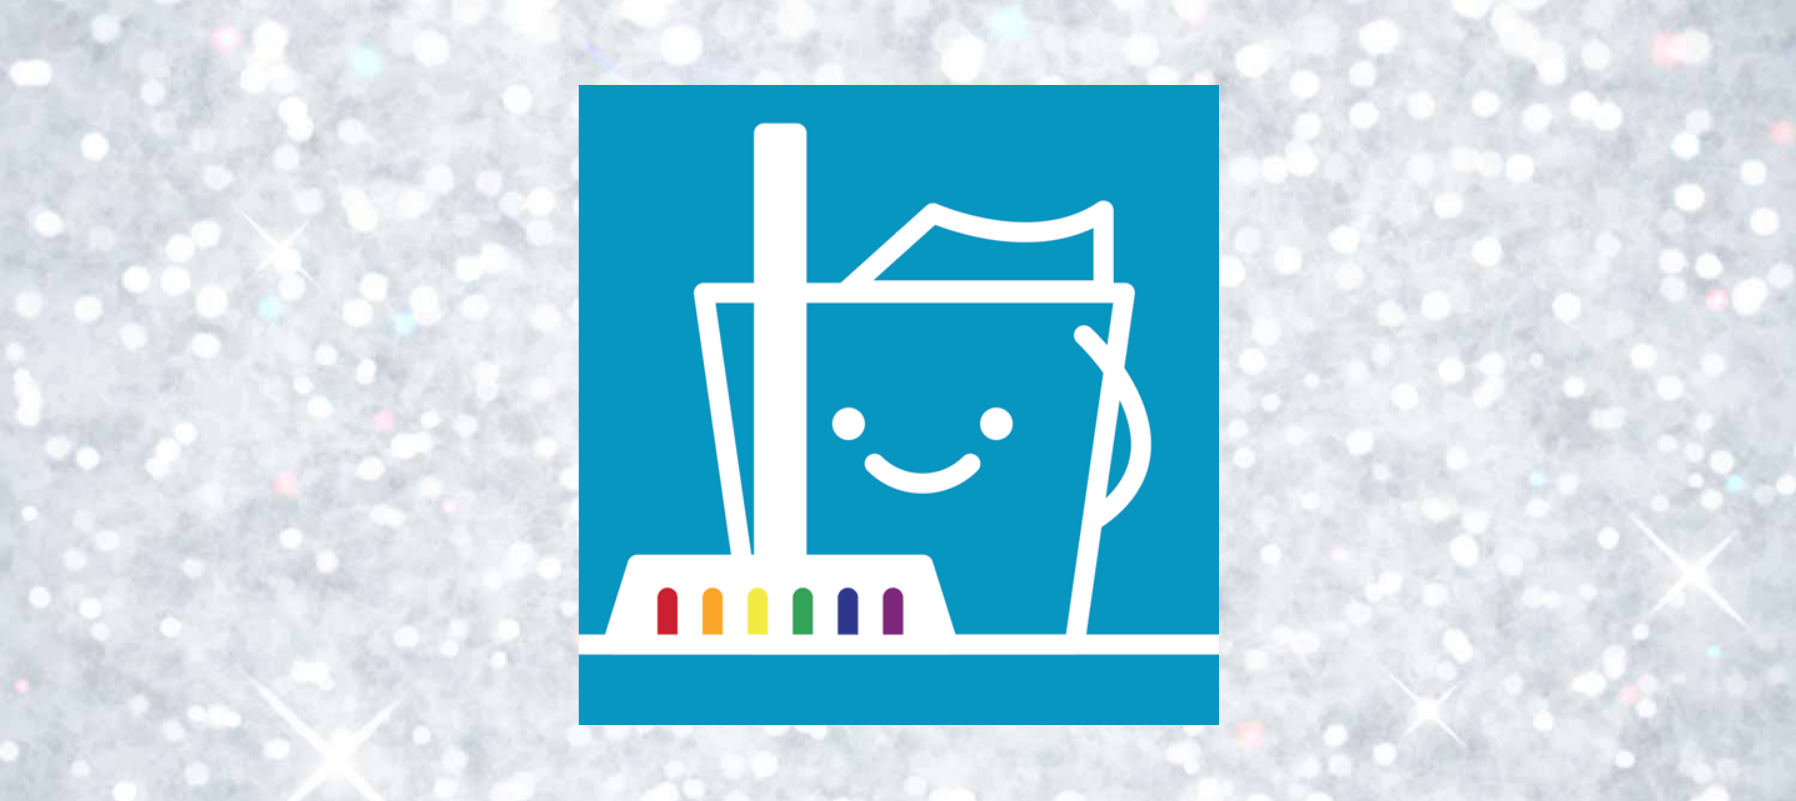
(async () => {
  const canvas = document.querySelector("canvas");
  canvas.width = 1796;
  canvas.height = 801;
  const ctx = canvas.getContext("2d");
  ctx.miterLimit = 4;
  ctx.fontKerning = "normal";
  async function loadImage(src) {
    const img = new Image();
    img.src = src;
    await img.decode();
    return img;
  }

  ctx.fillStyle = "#ffffff";
  ctx.fillRect(0, 0, 1796, 801);
  ctx.drawImage(await loadImage("img/1.png"), 0, 0, 1796, 801);
  ctx.drawImage(await loadImage("img/2.png"), 578, 85, 641, 640);
})();
